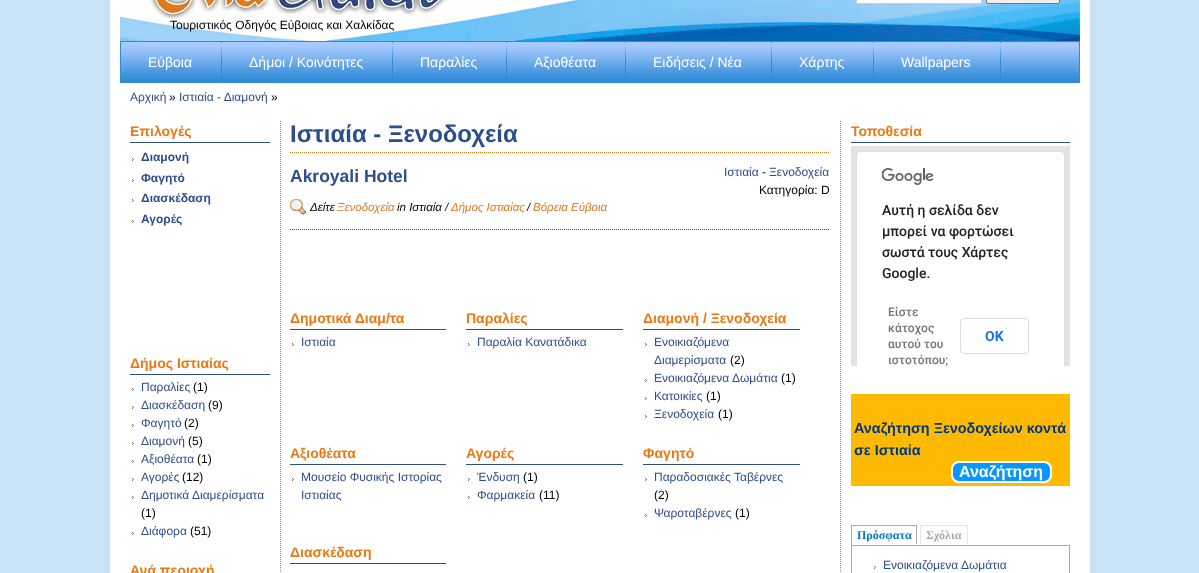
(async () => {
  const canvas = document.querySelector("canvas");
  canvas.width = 1199;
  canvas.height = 573;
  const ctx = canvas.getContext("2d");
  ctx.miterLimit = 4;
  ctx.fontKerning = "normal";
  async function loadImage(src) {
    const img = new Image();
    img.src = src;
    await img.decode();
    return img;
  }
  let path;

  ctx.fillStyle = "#c6e3f7";
  ctx.fillRect(0, 0, 1199, 573);
  ctx.fillStyle = "#ffffff";
  ctx.fillRect(110, 0, 980, 573);
  ctx.drawImage(await loadImage("img/1.png"), 120, 0, 960, 41);
  ctx.beginPath();
  ctx.rect(856.5, -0.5, 125, 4);
  ctx.fill();
  ctx.strokeStyle = "#cccccc";
  ctx.stroke();
  ctx.fillStyle = "#efefef";
  ctx.beginPath();
  ctx.roundRect(986.5, -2.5, 73, 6, 1.5);
  ctx.fill();
  ctx.strokeStyle = "#767676";
  ctx.stroke();
  ctx.drawImage(await loadImage("img/2.png"), 150, 0, 301, 21);
  ctx.drawImage(await loadImage("img/3.png"), 121, 42, 958, 40);
  ctx.strokeStyle = "#308ad7";
  ctx.strokeRect(120.5, 41.5, 959, 41);
  ctx.drawImage(await loadImage("img/4.png"), 221, 42, 1, 38);
  ctx.drawImage(await loadImage("img/4.png"), 392, 42, 1, 38);
  ctx.drawImage(await loadImage("img/4.png"), 506, 42, 1, 38);
  ctx.drawImage(await loadImage("img/4.png"), 625, 42, 1, 38);
  ctx.drawImage(await loadImage("img/4.png"), 771, 42, 1, 38);
  ctx.drawImage(await loadImage("img/4.png"), 873, 42, 1, 38);
  ctx.drawImage(await loadImage("img/4.png"), 1000, 42, 1, 38);
  path = new Path2D("M280.5 121V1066");
  ctx.strokeStyle = "#ea7913";
  ctx.setLineDash([1, 1]);
  ctx.stroke(path);
  ctx.fillStyle = "#2d4d8d";
  ctx.fillRect(130, 142, 140, 1);
  ctx.drawImage(await loadImage("img/5.png"), 132, 158, 2, 3);
  ctx.drawImage(await loadImage("img/5.png"), 132, 179, 2, 3);
  ctx.drawImage(await loadImage("img/5.png"), 132, 199, 2, 3);
  ctx.drawImage(await loadImage("img/5.png"), 132, 220, 2, 3);
  ctx.fillRect(130, 374, 140, 1);
  ctx.drawImage(await loadImage("img/5.png"), 132, 388, 2, 3);
  ctx.drawImage(await loadImage("img/5.png"), 132, 406, 2, 3);
  ctx.drawImage(await loadImage("img/5.png"), 132, 424, 2, 3);
  ctx.drawImage(await loadImage("img/5.png"), 132, 442, 2, 3);
  ctx.drawImage(await loadImage("img/5.png"), 132, 460, 2, 3);
  ctx.drawImage(await loadImage("img/5.png"), 132, 478, 2, 3);
  ctx.drawImage(await loadImage("img/5.png"), 132, 496, 2, 3);
  ctx.drawImage(await loadImage("img/5.png"), 132, 532, 2, 3);
  path = new Path2D("M290 152.5H830");
  ctx.stroke(path);
  path = new Path2D("M290 229.5H830");
  ctx.strokeStyle = "#2d4d8d";
  ctx.stroke(path);
  ctx.drawImage(await loadImage("img/6.png"), 290, 199, 17, 16);
  ctx.fillRect(290, 329, 156, 1);
  ctx.drawImage(await loadImage("img/5.png"), 292, 343, 2, 3);
  ctx.fillRect(466, 329, 157, 1);
  ctx.drawImage(await loadImage("img/5.png"), 468, 343, 2, 3);
  ctx.fillRect(643, 329, 157, 1);
  ctx.drawImage(await loadImage("img/5.png"), 645, 343, 2, 3);
  ctx.drawImage(await loadImage("img/5.png"), 645, 379, 2, 3);
  ctx.drawImage(await loadImage("img/5.png"), 645, 397, 2, 3);
  ctx.drawImage(await loadImage("img/5.png"), 645, 415, 2, 3);
  ctx.fillRect(290, 464, 156, 1);
  ctx.drawImage(await loadImage("img/5.png"), 292, 478, 2, 3);
  ctx.fillRect(466, 464, 157, 1);
  ctx.drawImage(await loadImage("img/5.png"), 468, 478, 2, 3);
  ctx.drawImage(await loadImage("img/5.png"), 468, 496, 2, 3);
  ctx.fillRect(643, 464, 157, 1);
  ctx.drawImage(await loadImage("img/5.png"), 645, 478, 2, 3);
  ctx.drawImage(await loadImage("img/5.png"), 645, 514, 2, 3);
  ctx.fillRect(290, 563, 156, 1);
  path = new Path2D("M840.5 121V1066");
  ctx.strokeStyle = "#ea7913";
  ctx.stroke(path);
  ctx.fillRect(851, 142, 219, 1);
  ctx.fillStyle = "#e5e3df";
  ctx.fillRect(851, 146, 219, 220);
  ctx.fillStyle = "#ffffff";
  ctx.beginPath();
  ctx.roundRect(856, 151, 209, 215, [5, 5, 0, 0]);
  ctx.fill();
  ctx.fillStyle = "#feba02";
  ctx.fillRect(851, 394, 219, 92);
  ctx.save();
  ctx.beginPath();
  ctx.rect(851, 146, 219, 220);
  ctx.clip();
  ctx.beginPath();
  ctx.roundRect(856.5, 151.5, 208, 249, 4.5);
  ctx.strokeStyle = "rgba(0, 0, 0, 0.12)";
  ctx.setLineDash([]);
  ctx.stroke();
  ctx.restore();
  ctx.drawImage(await loadImage("img/7.png"), 882, 168, 52, 17);
  ctx.beginPath();
  ctx.roundRect(960.5, 318.5, 68, 35, 3.5);
  ctx.strokeStyle = "#dadce0";
  ctx.setLineDash([]);
  ctx.stroke();
  ctx.fillStyle = "#0896ff";
  ctx.beginPath();
  ctx.roundRect(952, 462, 99, 20, 7);
  ctx.fill();
  ctx.strokeStyle = "#ffffff";
  ctx.lineWidth = 2;
  ctx.stroke();
  for (const [x, y, w, h, color] of [
    [851, 545, 219, 1, "#aaaaaa"],
    [851, 525, 66, 1, "#aaaaaa"],
    [916, 525, 1, 20, "#aaaaaa"],
    [916, 544, 1, 1, "#ffffff"],
    [851, 525, 1, 20, "#aaaaaa"],
    [920, 525, 48, 1, "#e5e5e5"],
    [967, 525, 1, 19, "#e5e5e5"],
    [920, 525, 1, 19, "#e5e5e5"],
    [1069, 546, 1, 27, "#aaaaaa"],
    [851, 546, 1, 27, "#aaaaaa"],
  ]) {
    ctx.fillStyle = color;
    ctx.fillRect(x, y, w, h);
  }
  ctx.drawImage(await loadImage("img/5.png"), 874, 566, 2, 3);
  ctx.font = "12px Liberation Sans";
  ctx.fillStyle = "#000000";
  ctx.fillText("Τουριστικός Οδηγός Εύβοιας και Χαλκίδας", 170, 29);
  ctx.font = "14px Liberation Sans";
  ctx.fillStyle = "#ffffff";
  for (const [text, x, y] of [
    ["Εύβοια", 148, 67],
    ["Δήμοι / Κοινότητες", 249, 67],
    ["Παραλίες", 420, 67],
    ["Αξιοθέατα", 534, 67],
    ["Ειδήσεις / Νέα", 653, 67],
    ["Χάρτης", 799, 67],
    ["Wallpapers", 901, 67],
  ]) {
    ctx.fillText(text, x, y);
  }
  ctx.font = "12px Liberation Sans";
  ctx.fillStyle = "#2d4d8d";
  ctx.fillText("Αρχική", 130, 101);
  ctx.fillStyle = "#000000";
  ctx.fillText("»", 169, 101);
  ctx.fillStyle = "#2d4d8d";
  ctx.fillText("Ιστιαία - Διαμονή", 179, 101);
  ctx.fillStyle = "#000000";
  ctx.fillText("»", 271, 101);
  ctx.font = "bold 14px Liberation Sans";
  ctx.fillStyle = "#ea7913";
  ctx.fillText("Επιλογές", 130, 136);
  ctx.font = "bold 12px Liberation Sans";
  ctx.fillStyle = "#2d4d8d";
  for (const [text, x, y] of [
    ["Διαμονή", 141, 161],
    ["Φαγητό", 141, 182],
    ["Διασκέδαση", 141, 202],
    ["Αγορές", 141, 223],
  ]) {
    ctx.fillText(text, x, y);
  }
  ctx.font = "bold 14px Liberation Sans";
  ctx.fillStyle = "#ea7913";
  ctx.fillText("Δήμος Ιστιαίας", 130, 368);
  ctx.font = "12px Liberation Sans";
  ctx.fillStyle = "#2d4d8d";
  ctx.fillText("Παραλίες", 141, 391);
  ctx.fillStyle = "#000000";
  ctx.fillText("(1)", 193, 391);
  ctx.fillStyle = "#2d4d8d";
  ctx.fillText("Διασκέδαση", 141, 409);
  ctx.fillStyle = "#000000";
  ctx.fillText("(9)", 208, 409);
  ctx.fillStyle = "#2d4d8d";
  ctx.fillText("Φαγητό", 141, 427);
  ctx.fillStyle = "#000000";
  ctx.fillText("(2)", 184, 427);
  ctx.fillStyle = "#2d4d8d";
  ctx.fillText("Διαμονή", 141, 445);
  ctx.fillStyle = "#000000";
  ctx.fillText("(5)", 188, 445);
  ctx.fillStyle = "#2d4d8d";
  ctx.fillText("Αξιοθέατα", 141, 463);
  ctx.fillStyle = "#000000";
  ctx.fillText("(1)", 197, 463);
  ctx.fillStyle = "#2d4d8d";
  ctx.fillText("Αγορές", 141, 481);
  ctx.fillStyle = "#000000";
  ctx.fillText("(12)", 182, 481);
  ctx.fillStyle = "#2d4d8d";
  ctx.fillText("Δημοτικά Διαμερίσματα", 141, 499);
  ctx.fillStyle = "#000000";
  ctx.fillText("(1)", 141, 517);
  ctx.fillStyle = "#2d4d8d";
  ctx.fillText("Διάφορα", 141, 535);
  ctx.fillStyle = "#000000";
  ctx.fillText("(51)", 190, 535);
  ctx.font = "bold 14px Liberation Sans";
  ctx.fillStyle = "#ea7913";
  ctx.fillText("Ανά περιοχή", 130, 575);
  ctx.font = "bold 24px Liberation Sans";
  ctx.fillStyle = "#2d4d8d";
  ctx.fillText("Ιστιαία - Ξενοδοχεία", 290, 142);
  ctx.font = "bold 17.5px Liberation Sans";
  ctx.fillText("Akroyali Hotel", 290, 182);
  ctx.font = "12px Liberation Sans";
  ctx.fillText("Ιστιαία", 724, 176);
  ctx.fillStyle = "#000000";
  ctx.fillText("-", 762, 176);
  ctx.fillStyle = "#2d4d8d";
  ctx.fillText("Ξενοδοχεία", 769, 176);
  ctx.fillStyle = "#000000";
  ctx.fillText("Κατηγορία: D", 759, 194);
  ctx.font = "italic 11.5px Liberation Sans";
  ctx.fillText("Δείτε", 310, 211);
  ctx.fillStyle = "#e1771e";
  ctx.fillText("Ξενοδοχεία", 337, 211);
  ctx.fillStyle = "#000000";
  ctx.fillText("in Ιστιαία /", 397, 211);
  ctx.fillStyle = "#e1771e";
  ctx.fillText("Δήμος Ιστιαίας", 451, 211);
  ctx.fillStyle = "#000000";
  ctx.fillText("/", 527, 211);
  ctx.fillStyle = "#e1771e";
  ctx.fillText("Βόρεια Εύβοια", 533, 211);
  ctx.font = "bold 14px Liberation Sans";
  ctx.fillStyle = "#ea7913";
  ctx.fillText("Δημοτικά Διαμ/τα", 290, 323);
  ctx.font = "12px Liberation Sans";
  ctx.fillStyle = "#2d4d8d";
  ctx.fillText("Ιστιαία", 301, 346);
  ctx.font = "bold 14px Liberation Sans";
  ctx.fillStyle = "#ea7913";
  ctx.fillText("Παραλίες", 466, 323);
  ctx.font = "12px Liberation Sans";
  ctx.fillStyle = "#2d4d8d";
  ctx.fillText("Παραλία Κανατάδικα", 477, 346);
  ctx.font = "bold 14px Liberation Sans";
  ctx.fillStyle = "#ea7913";
  ctx.fillText("Διαμονή / Ξενοδοχεία", 643, 323);
  ctx.font = "12px Liberation Sans";
  ctx.fillStyle = "#2d4d8d";
  ctx.fillText("Ενοικιαζόμενα", 654, 346);
  ctx.fillText("Διαμερίσματα", 654, 364);
  ctx.fillStyle = "#000000";
  ctx.fillText("(2)", 730, 364);
  ctx.fillStyle = "#2d4d8d";
  ctx.fillText("Ενοικιαζόμενα Δωμάτια", 654, 382);
  ctx.fillStyle = "#000000";
  ctx.fillText("(1)", 781, 382);
  ctx.fillStyle = "#2d4d8d";
  ctx.fillText("Κατοικίες", 654, 400);
  ctx.fillStyle = "#000000";
  ctx.fillText("(1)", 706, 400);
  ctx.fillStyle = "#2d4d8d";
  ctx.fillText("Ξενοδοχεία", 654, 418);
  ctx.fillStyle = "#000000";
  ctx.fillText("(1)", 718, 418);
  ctx.font = "bold 14px Liberation Sans";
  ctx.fillStyle = "#ea7913";
  ctx.fillText("Αξιοθέατα", 290, 458);
  ctx.font = "12px Liberation Sans";
  ctx.fillStyle = "#2d4d8d";
  ctx.fillText("Μουσείο Φυσικής Ιστορίας", 301, 481);
  ctx.fillText("Ιστιαίας", 301, 499);
  ctx.font = "bold 14px Liberation Sans";
  ctx.fillStyle = "#ea7913";
  ctx.fillText("Αγορές", 466, 458);
  ctx.font = "12px Liberation Sans";
  ctx.fillStyle = "#2d4d8d";
  ctx.fillText("Ένδυση", 477, 481);
  ctx.fillStyle = "#000000";
  ctx.fillText("(1)", 523, 481);
  ctx.fillStyle = "#2d4d8d";
  ctx.fillText("Φαρμακεία", 477, 499);
  ctx.fillStyle = "#000000";
  ctx.fillText("(11)", 539, 499);
  ctx.font = "bold 14px Liberation Sans";
  ctx.fillStyle = "#ea7913";
  ctx.fillText("Φαγητό", 643, 458);
  ctx.font = "12px Liberation Sans";
  ctx.fillStyle = "#2d4d8d";
  ctx.fillText("Παραδοσιακές Ταβέρνες", 654, 481);
  ctx.fillStyle = "#000000";
  ctx.fillText("(2)", 654, 499);
  ctx.fillStyle = "#2d4d8d";
  ctx.fillText("Ψαροταβέρνες", 654, 517);
  ctx.fillStyle = "#000000";
  ctx.fillText("(1)", 735, 517);
  ctx.font = "bold 14px Liberation Sans";
  ctx.fillStyle = "#ea7913";
  ctx.fillText("Διασκέδαση", 290, 557);
  ctx.fillText("Τοποθεσία", 851, 136);
  ctx.font = "500 14px Roboto";
  ctx.fillStyle = "#212121";
  for (const [text, x, y] of [
    ["Αυτή η σελίδα δεν", 882, 215],
    ["μπορεί να φορτώσει", 882, 236],
    ["σωστά τους Χάρτες", 882, 257],
    ["Google.", 882, 278],
  ]) {
    ctx.fillText(text, x, y);
  }
  ctx.font = "500 12px Roboto";
  ctx.fillStyle = "#757575";
  for (const [text, x, y] of [
    ["Είστε", 888, 316],
    ["κάτοχος", 888, 332],
    ["αυτού του", 888, 348],
    ["ιστοτόπου;", 888, 364],
  ]) {
    ctx.fillText(text, x, y);
  }
  ctx.font = "bold 14px Roboto";
  ctx.fillStyle = "#1a73e8";
  ctx.fillText("ΟΚ", 985, 341);
  ctx.font = "bold 14.4px Liberation Sans";
  ctx.fillStyle = "#003580";
  ctx.fillText("Αναζήτηση Ξενοδοχείων κοντά", 854, 433);
  ctx.fillText("σε Ιστιαία", 854, 455);
  ctx.font = "bold 16px Liberation Sans";
  ctx.fillStyle = "#ffffff";
  ctx.fillText("Αναζήτηση", 959, 477);
  ctx.font = "bold 12px Liberation Serif";
  ctx.fillStyle = "#027ac6";
  ctx.fillText("Πρόσφατα", 857, 539);
  ctx.fillStyle = "#aaaaaa";
  ctx.fillText("Σχόλια", 926, 539);
  ctx.font = "12px Liberation Sans";
  ctx.fillStyle = "#2d4d8d";
  ctx.fillText("Ενοικιαζόμενα Δωμάτια", 883, 569);
})();
